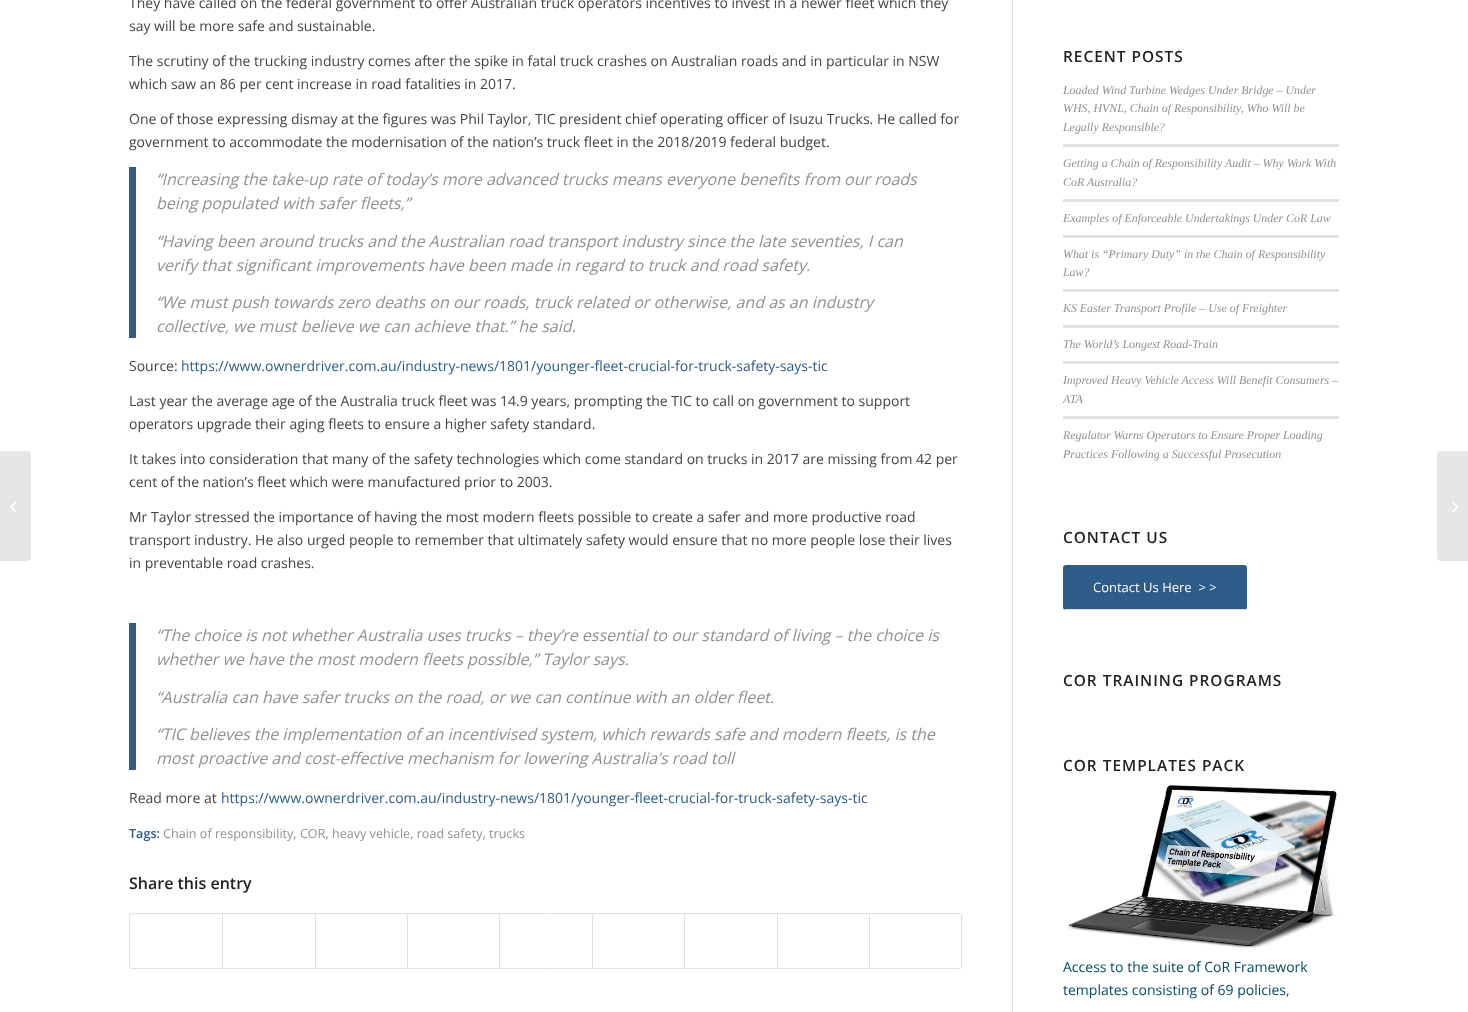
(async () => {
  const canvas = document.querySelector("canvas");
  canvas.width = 1468;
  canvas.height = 1012;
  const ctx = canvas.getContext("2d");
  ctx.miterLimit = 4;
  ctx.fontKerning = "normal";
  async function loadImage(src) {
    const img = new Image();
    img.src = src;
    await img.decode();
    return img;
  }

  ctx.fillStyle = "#ffffff";
  ctx.fillRect(0, 0, 1468, 1012);
  ctx.fillStyle = "#e6e6e6";
  ctx.beginPath();
  ctx.roundRect(0, 451, 31, 110, [0, 4, 4, 0]);
  ctx.fill();
  ctx.drawImage(await loadImage("img/1.png"), 10, 501, 6, 12);
  for (const [x, y, w, h, color] of [
    [1012, 0, 1, 1012, "#e1e1e1"],
    [129, 167, 7, 171, "#2d5c88"],
    [129, 623, 7, 147, "#2d5c88"],
  ]) {
    ctx.fillStyle = color;
    ctx.fillRect(x, y, w, h);
  }
  ctx.beginPath();
  ctx.roundRect(129.5, 913.5, 832, 55, 2.5);
  ctx.strokeStyle = "#e1e1e1";
  ctx.stroke();
  for (const [x, y, w, h, color] of [
    [222, 914, 1, 54, "#e1e1e1"],
    [315, 914, 1, 54, "#e1e1e1"],
    [407, 914, 1, 54, "#e1e1e1"],
    [499, 914, 1, 54, "#e1e1e1"],
    [592, 914, 1, 54, "#e1e1e1"],
    [684, 914, 1, 54, "#e1e1e1"],
    [777, 914, 1, 54, "#e1e1e1"],
    [869, 914, 1, 54, "#e1e1e1"],
    [1063, 144, 276, 3, "#e1e1e1"],
    [1063, 199, 276, 3, "#e1e1e1"],
    [1063, 235, 276, 3, "#e1e1e1"],
    [1063, 289, 276, 3, "#e1e1e1"],
    [1063, 325, 276, 3, "#e1e1e1"],
    [1063, 361, 276, 3, "#e1e1e1"],
    [1063, 416, 276, 3, "#e1e1e1"],
  ]) {
    ctx.fillStyle = color;
    ctx.fillRect(x, y, w, h);
  }
  ctx.fillStyle = "#2e5c88";
  ctx.beginPath();
  ctx.roundRect(1063, 565, 184, 45, 3);
  ctx.fill();
  ctx.fillStyle = "#e1e1e1";
  ctx.fillRect(1065, 609, 181, 1);
  ctx.drawImage(await loadImage("img/2.png"), 1067, 784, 271, 164);
  ctx.fillStyle = "#e6e6e6";
  ctx.beginPath();
  ctx.roundRect(1437, 451, 31, 110, [4, 0, 0, 4]);
  ctx.fill();
  ctx.drawImage(await loadImage("img/3.png"), 1452, 501, 6, 12);
  ctx.font = "14px Open Sans";
  ctx.fillStyle = "#444444";
  for (const [text, x, y] of [
    ["They have called on the federal government to offer Australian truck operators incentives to invest in a newer fleet which they", 129, 8],
    ["say will be more safe and sustainable.", 129, 31],
    ["The scrutiny of the trucking industry comes after the spike in fatal truck crashes on Australian roads and in particular in NSW", 129, 66],
    ["which saw an 86 per cent increase in road fatalities in 2017.", 129, 89],
    ["One of those expressing dismay at the figures was Phil Taylor, TIC president chief operating officer of Isuzu Trucks. He called for", 129, 124],
    ["government to accommodate the modernisation of the nation’s truck fleet in the 2018/2019 federal budget.", 129, 147],
  ]) {
    ctx.fillText(text, x, y);
  }
  ctx.font = "italic 16px Open Sans";
  ctx.fillStyle = "#919191";
  for (const [text, x, y] of [
    ["“Increasing the take-up rate of today’s more advanced trucks means everyone benefits from our roads", 156, 185],
    ["being populated with safer fleets,”", 156, 209],
    ["“Having been around trucks and the Australian road transport industry since the late seventies, I can", 156, 247],
    ["verify that significant improvements have been made in regard to truck and road safety.", 156, 271],
    ["“We must push towards zero deaths on our roads, truck related or otherwise, and as an industry", 156, 308],
    ["collective, we must believe we can achieve that.” he said.", 156, 332],
  ]) {
    ctx.fillText(text, x, y);
  }
  ctx.font = "14px Open Sans";
  ctx.fillStyle = "#444444";
  ctx.fillText("Source:", 129, 371);
  ctx.fillStyle = "#2d5c88";
  ctx.fillText("https://www.ownerdriver.com.au/industry-news/1801/younger-fleet-crucial-for-truck-safety-says-tic", 181, 371);
  ctx.fillStyle = "#444444";
  for (const [text, x, y] of [
    ["Last year the average age of the Australia truck fleet was 14.9 years, prompting the TIC to call on government to support", 129, 406],
    ["operators upgrade their aging fleets to ensure a higher safety standard.", 129, 429],
    ["It takes into consideration that many of the safety technologies which come standard on trucks in 2017 are missing from 42 per", 129, 464],
    ["cent of the nation’s fleet which were manufactured prior to 2003.", 129, 487],
    ["Mr Taylor stressed the importance of having the most modern fleets possible to create a safer and more productive road", 129, 522],
    ["transport industry. He also urged people to remember that ultimately safety would ensure that no more people lose their lives", 129, 545],
    ["in preventable road crashes.", 129, 568],
  ]) {
    ctx.fillText(text, x, y);
  }
  ctx.font = "italic 16px Open Sans";
  ctx.fillStyle = "#919191";
  for (const [text, x, y] of [
    ["“The choice is not whether Australia uses trucks – they’re essential to our standard of living – the choice is", 156, 641],
    ["whether we have the most modern fleets possible,” Taylor says.", 156, 665],
    ["“Australia can have safer trucks on the road, or we can continue with an older fleet.", 156, 703],
    ["“TIC believes the implementation of an incentivised system, which rewards safe and modern fleets, is the", 156, 740],
    ["most proactive and cost-effective mechanism for lowering Australia’s road toll", 156, 764],
  ]) {
    ctx.fillText(text, x, y);
  }
  ctx.font = "14px Open Sans";
  ctx.fillStyle = "#444444";
  ctx.fillText("Read more at", 129, 803);
  ctx.fillStyle = "#2d5c88";
  ctx.fillText("https://www.ownerdriver.com.au/industry-news/1801/younger-fleet-crucial-for-truck-safety-says-tic", 221, 803);
  ctx.font = "600 12.6px Open Sans";
  ctx.fillText("Tags:", 129, 838);
  ctx.font = "12.6px Open Sans";
  ctx.fillStyle = "#919191";
  ctx.fillText("Chain of responsibility, COR, heavy vehicle, road safety, trucks", 163, 838);
  ctx.font = "600 16px Open Sans";
  ctx.fillStyle = "#222222";
  ctx.fillText("Share this entry", 129, 889);
  ctx.letterSpacing = "1px";
  ctx.font = "600 15.4px Open Sans";
  ctx.fillText("RECENT POSTS", 1063, 62);
  ctx.letterSpacing = "0px";
  ctx.font = "italic 11.9px Liberation Serif";
  ctx.fillStyle = "#919191";
  for (const [text, x, y] of [
    ["Loaded Wind Turbine Wedges Under Bridge – Under", 1063, 94],
    ["WHS, HVNL, Chain of Responsibility, Who Will be", 1063, 112],
    ["Legally Responsible?", 1063, 131],
    ["Getting a Chain of Responsibility Audit – Why Work With", 1063, 167],
    ["CoR Australia?", 1063, 186],
    ["Examples of Enforceable Undertakings Under CoR Law", 1063, 222],
    ["What is “Primary Duty” in the Chain of Responsibility", 1063, 258],
    ["Law?", 1063, 276],
    ["KS Easter Transport Profile – Use of Freighter", 1063, 312],
    ["The World’s Longest Road-Train", 1063, 348],
    ["Improved Heavy Vehicle Access Will Benefit Consumers –", 1063, 384],
    ["ATA", 1063, 403],
    ["Regulator Warns Operators to Ensure Proper Loading", 1063, 439],
    ["Practices Following a Successful Prosecution", 1063, 458],
  ]) {
    ctx.fillText(text, x, y);
  }
  ctx.letterSpacing = "1px";
  ctx.font = "600 15.4px Open Sans";
  ctx.fillStyle = "#222222";
  ctx.fillText("CONTACT US", 1063, 543);
  ctx.letterSpacing = "0px";
  ctx.font = "13px Open Sans";
  ctx.fillStyle = "#ffffff";
  ctx.fillText("Contact Us Here  > >", 1093, 592);
  ctx.letterSpacing = "1px";
  ctx.font = "600 15.4px Open Sans";
  ctx.fillStyle = "#222222";
  ctx.fillText("COR TRAINING PROGRAMS", 1063, 686);
  ctx.fillText("COR TEMPLATES PACK", 1063, 771);
  ctx.letterSpacing = "0px";
  ctx.font = "14px Open Sans";
  ctx.fillStyle = "#044c62";
  ctx.fillText("Access to the suite of CoR Framework", 1063, 972);
  ctx.fillText("templates consisting of 69 policies,", 1063, 995);
})();
